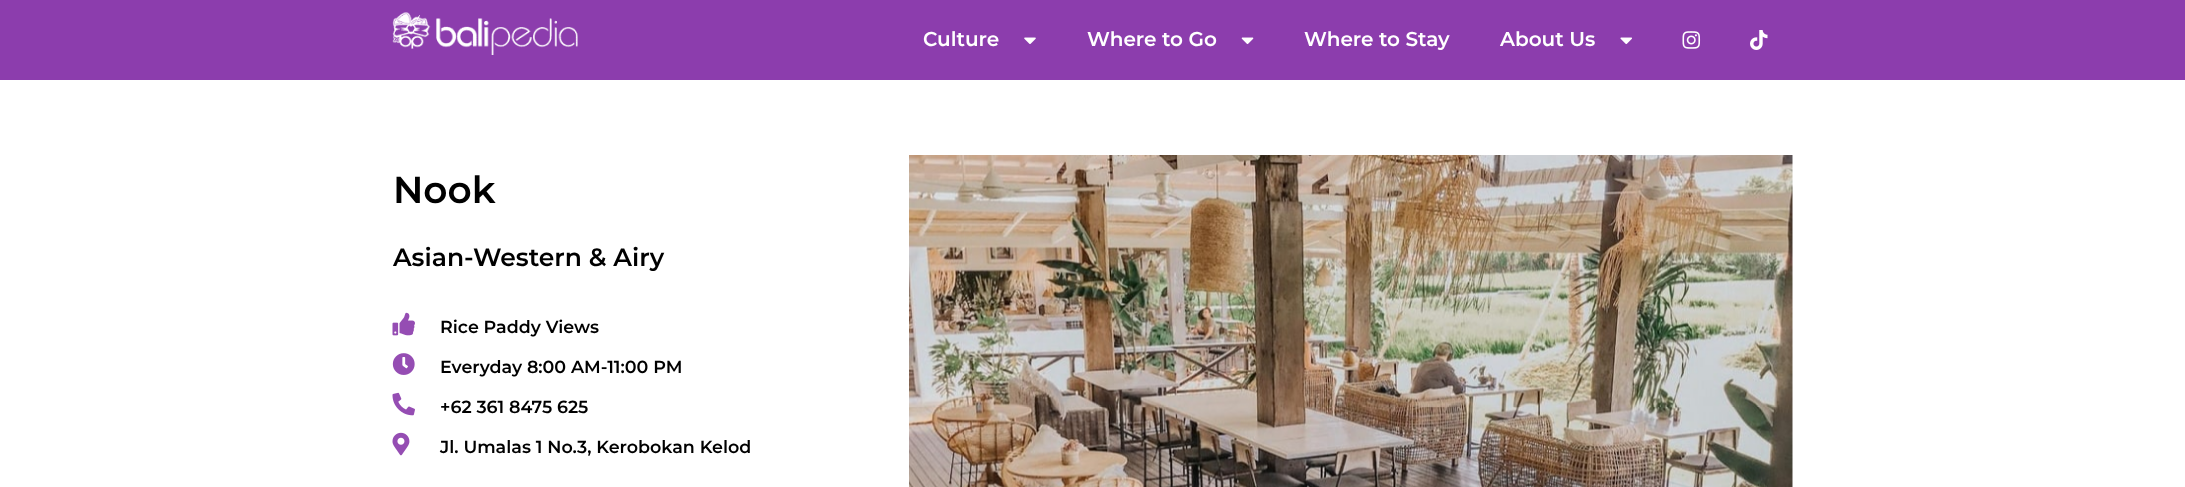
(async () => {
  const canvas = document.querySelector("canvas");
  canvas.width = 2185;
  canvas.height = 487;
  const ctx = canvas.getContext("2d");
  ctx.miterLimit = 4;
  ctx.fontKerning = "normal";
  async function loadImage(src) {
    const img = new Image();
    img.src = src;
    await img.decode();
    return img;
  }

  ctx.fillStyle = "#ffffff";
  ctx.fillRect(0, 0, 2185, 487);
  ctx.fillStyle = "#8c3dad";
  ctx.fillRect(0, 0, 2185, 80);
  ctx.drawImage(await loadImage("img/1.png"), 392, 12, 186, 43);
  ctx.drawImage(await loadImage("img/2.png"), 1024, 37, 12, 7);
  ctx.drawImage(await loadImage("img/3.png"), 1241, 37, 13, 8);
  ctx.drawImage(await loadImage("img/4.png"), 1620, 37, 12, 8);
  ctx.drawImage(await loadImage("img/5.png"), 1682, 31, 19, 18);
  ctx.drawImage(await loadImage("img/6.png"), 1750, 30, 18, 20);
  ctx.drawImage(await loadImage("img/7.png"), 392, 312, 23, 24);
  ctx.drawImage(await loadImage("img/8.png"), 392, 353, 23, 22);
  ctx.drawImage(await loadImage("img/9.png"), 392, 392, 23, 24);
  ctx.drawImage(await loadImage("img/10.png"), 392, 432, 18, 24);
  ctx.drawImage(await loadImage("img/11.png"), 909, 155, 884, 332);
  ctx.font = "600 20px Montserrat";
  ctx.fillStyle = "#ffffff";
  for (const [text, x, y] of [
    ["Culture", 923, 46],
    ["Where to Go", 1087, 46],
    ["Where to Stay", 1304, 46],
    ["About Us", 1500, 46],
  ]) {
    ctx.fillText(text, x, y);
  }
  ctx.font = "600 37.5px Montserrat";
  ctx.fillStyle = "#000000";
  ctx.fillText("Nook", 393, 203);
  ctx.font = "600 25px Montserrat";
  ctx.fillText("Asian-Western & Airy", 393, 266);
  ctx.font = "600 17.5px Montserrat";
  for (const [text, x, y] of [
    ["Rice Paddy Views", 440, 333],
    ["Everyday 8:00 AM-11:00 PM", 440, 373],
    ["+62 361 8475 625", 440, 413],
    ["Jl. Umalas 1 No.3, Kerobokan Kelod", 440, 453],
  ]) {
    ctx.fillText(text, x, y);
  }
})();
